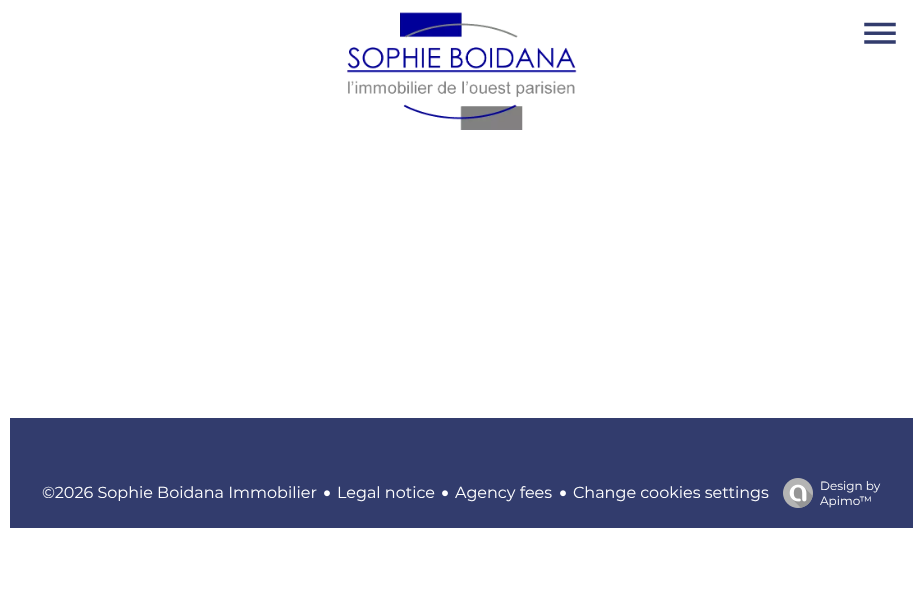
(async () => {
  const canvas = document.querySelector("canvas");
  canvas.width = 923;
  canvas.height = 611;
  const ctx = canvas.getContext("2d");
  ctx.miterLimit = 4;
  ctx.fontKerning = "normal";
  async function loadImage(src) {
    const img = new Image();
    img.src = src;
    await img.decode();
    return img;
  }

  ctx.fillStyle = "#ffffff";
  ctx.fillRect(0, 0, 923, 611);
  ctx.drawImage(await loadImage("img/1.png"), 347, 12, 230, 118);
  ctx.drawImage(await loadImage("img/2.png"), 864, 22, 32, 22);
  ctx.fillStyle = "#323c6d";
  ctx.fillRect(10, 418, 903, 110);
  ctx.drawImage(await loadImage("img/3.png"), 324, 490, 6, 7);
  ctx.drawImage(await loadImage("img/3.png"), 442, 490, 6, 7);
  ctx.drawImage(await loadImage("img/3.png"), 560, 490, 6, 7);
  ctx.drawImage(await loadImage("img/4.png"), 783, 478, 30, 30);
  ctx.font = "16px Montserrat";
  ctx.fillStyle = "#ffffff";
  for (const [text, x, y] of [
    ["©2026 Sophie Boidana Immobilier", 42, 498],
    ["Legal notice", 337, 498],
    ["Agency fees", 455, 498],
    ["Change cookies settings", 573, 498],
  ]) {
    ctx.fillText(text, x, y);
  }
  ctx.font = "12px Montserrat";
  ctx.fillText("Design by", 820, 490);
  ctx.fillText("Apimo™", 820, 505);
})();
